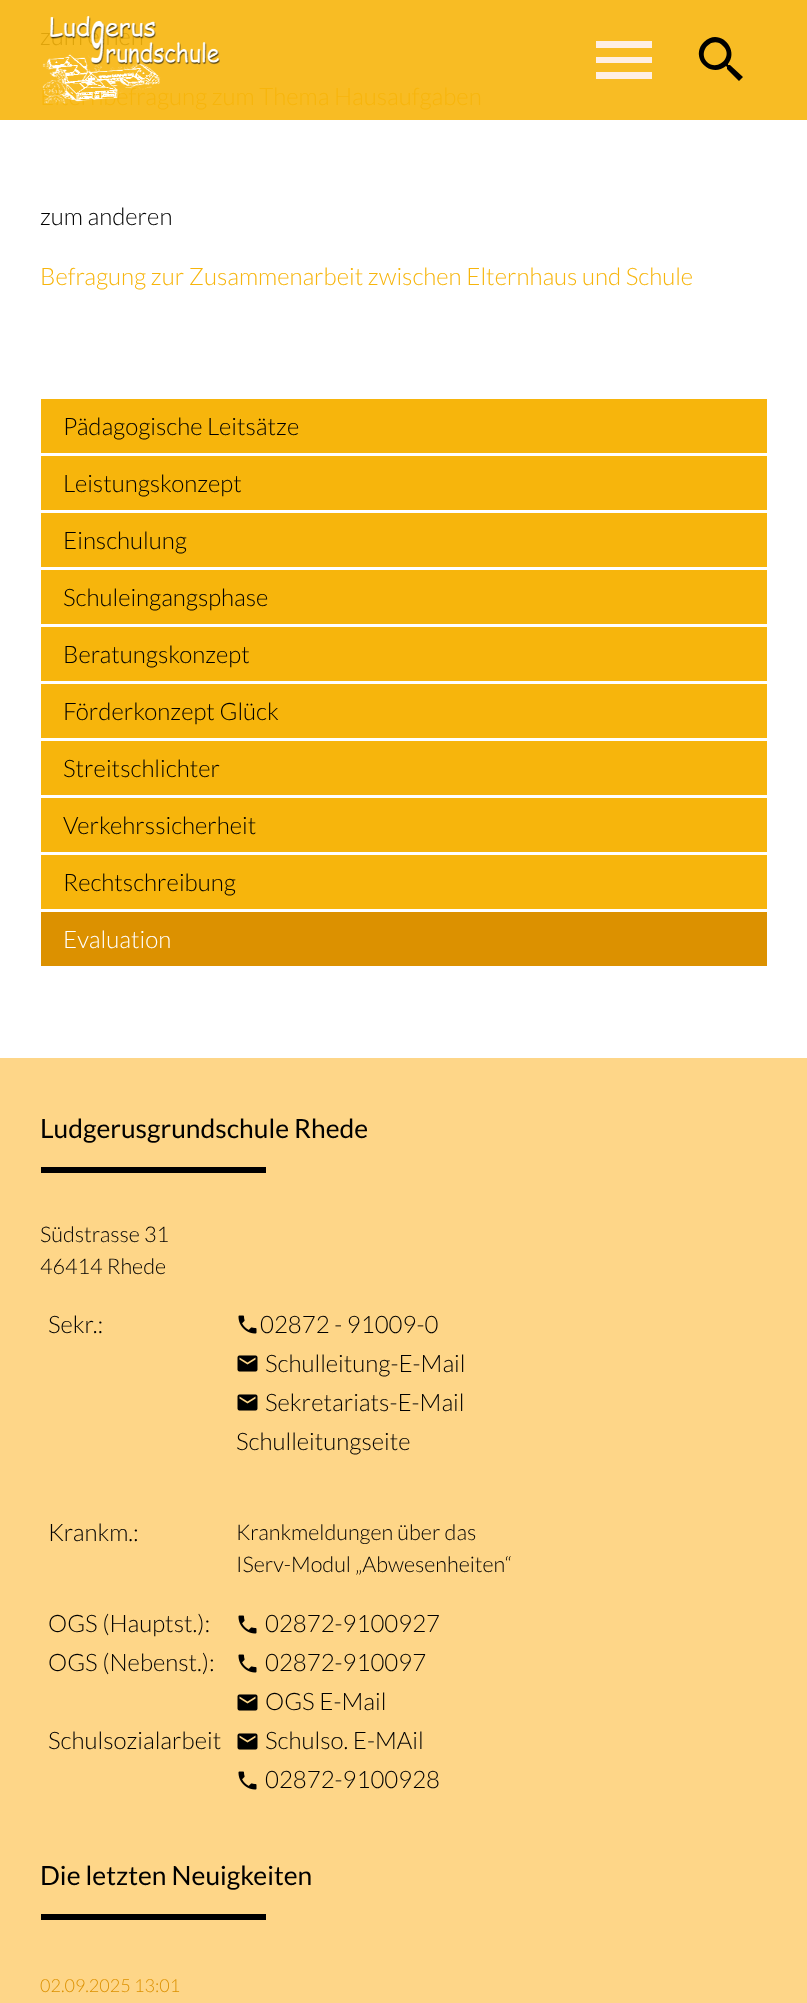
(async () => {
  const canvas = document.querySelector("canvas");
  canvas.width = 807;
  canvas.height = 2003;
  const ctx = canvas.getContext("2d");
  ctx.miterLimit = 4;
  ctx.fontKerning = "normal";
  async function loadImage(src) {
    const img = new Image();
    img.src = src;
    await img.decode();
    return img;
  }
  let path;

  ctx.fillStyle = "#ffffff";
  ctx.fillRect(0, 0, 807, 2003);
  ctx.fillStyle = "#f8bc24";
  ctx.fillRect(0, 0, 807, 120);
  ctx.fillStyle = "#ffefe4";
  path = new Path2D("M596 41H652V48H596ZM596 63V57H652V63ZM596 79V72H652V79Z");
  ctx.fill(path);
  ctx.fillStyle = "#000000";
  path = new Path2D("M707 62C718 72 734 56 723 46C713 35 697 51 707 62ZM730 65L743 77L739 81L727 69V67L726 66C710 79 689 57 704 42C719 27 740 49 728 64V65Z");
  ctx.fill(path);
  for (const [x, y, w, h, color] of [
    [41, 399, 726, 54, "#f7b50c"],
    [41, 456, 726, 54, "#f7b50c"],
    [41, 513, 726, 54, "#f7b50c"],
    [41, 570, 726, 54, "#f7b50c"],
    [41, 627, 726, 54, "#f7b50c"],
    [41, 684, 726, 54, "#f7b50c"],
    [41, 741, 726, 54, "#f7b50c"],
    [41, 798, 726, 54, "#f7b50c"],
    [41, 855, 726, 54, "#f7b50c"],
    [41, 912, 726, 54, "#dc9100"],
    [0, 1058, 807, 945, "#fed688"],
    [41, 1167, 225, 6, "#000000"],
  ]) {
    ctx.fillStyle = color;
    ctx.fillRect(x, y, w, h);
  }
  ctx.drawImage(await loadImage("img/2.png"), 238, 1315, 19, 19);
  ctx.drawImage(await loadImage("img/3.png"), 237, 1355, 21, 17);
  ctx.drawImage(await loadImage("img/3.png"), 237, 1394, 21, 17);
  ctx.drawImage(await loadImage("img/2.png"), 238, 1615, 19, 19);
  ctx.drawImage(await loadImage("img/2.png"), 238, 1654, 19, 19);
  ctx.drawImage(await loadImage("img/3.png"), 237, 1694, 21, 17);
  ctx.drawImage(await loadImage("img/3.png"), 237, 1733, 21, 17);
  ctx.drawImage(await loadImage("img/2.png"), 238, 1771, 19, 19);
  ctx.fillRect(41, 1914, 225, 6);
  ctx.font = "300 24px Lato";
  ctx.fillStyle = "#dea30b";
  ctx.fillText("zum einen", 40, 45);
  ctx.fillStyle = "#f7b50c";
  ctx.fillText("Elternbefragung zum Thema Hausaufgaben", 40, 105);
  ctx.drawImage(await loadImage("img/1.png"), 42, 16, 178, 88);
  ctx.fillStyle = "#000000";
  ctx.fillText("zum anderen", 40, 225);
  ctx.fillStyle = "#f7b50c";
  ctx.fillText("Befragung zur Zusammenarbeit zwischen Elternhaus und Schule", 40, 285);
  ctx.fillStyle = "#000000";
  for (const [text, x, y] of [
    ["Pädagogische Leitsätze", 63, 435],
    ["Leistungskonzept", 63, 492],
    ["Einschulung", 63, 549],
    ["Schuleingangsphase", 63, 606],
    ["Beratungskonzept", 63, 663],
    ["Förderkonzept Glück", 63, 720],
    ["Streitschlichter", 63, 777],
    ["Verkehrssicherheit", 63, 834],
    ["Rechtschreibung", 63, 891],
  ]) {
    ctx.fillText(text, x, y);
  }
  ctx.fillStyle = "#ffffff";
  ctx.fillText("Evaluation", 63, 948);
  ctx.font = "26.4px Lato";
  ctx.fillStyle = "#000000";
  ctx.fillText("Ludgerusgrundschule Rhede", 40, 1138);
  ctx.font = "300 21.6px Lato";
  ctx.fillText("Südstrasse 31", 40, 1242);
  ctx.fillText("46414 Rhede", 40, 1274);
  ctx.font = "300 24px Lato";
  for (const [text, x, y] of [
    ["Sekr.:", 48, 1333],
    ["02872 - 91009-0", 260, 1333],
    ["Schulleitung-E-Mail", 265, 1372],
    ["Sekretariats-E-Mail", 265, 1411],
    ["Schulleitungseite", 236, 1450],
    ["Krankm.:", 48, 1541],
  ]) {
    ctx.fillText(text, x, y);
  }
  ctx.font = "300 21.6px Lato";
  ctx.fillText("Krankmeldungen über das", 236, 1540);
  ctx.fillText("IServ-Modul „Abwesenheiten“", 236, 1572);
  ctx.font = "300 24px Lato";
  for (const [text, x, y] of [
    ["OGS (Hauptst.):", 48, 1632],
    ["02872-9100927", 265, 1632],
    ["OGS (Nebenst.):", 48, 1671],
    ["02872-910097", 265, 1671],
    ["OGS E-Mail", 265, 1710],
    ["Schulsozialarbeit", 48, 1749],
    ["Schulso. E-MAil", 265, 1749],
    ["02872-9100928", 265, 1788],
  ]) {
    ctx.fillText(text, x, y);
  }
  ctx.font = "26.4px Lato";
  ctx.fillText("Die letzten Neuigkeiten", 40, 1885);
  ctx.font = "300 18px Lato";
  ctx.fillStyle = "#dc9100";
  ctx.fillText("02.09.2025 13:01", 40, 1992);
})();
